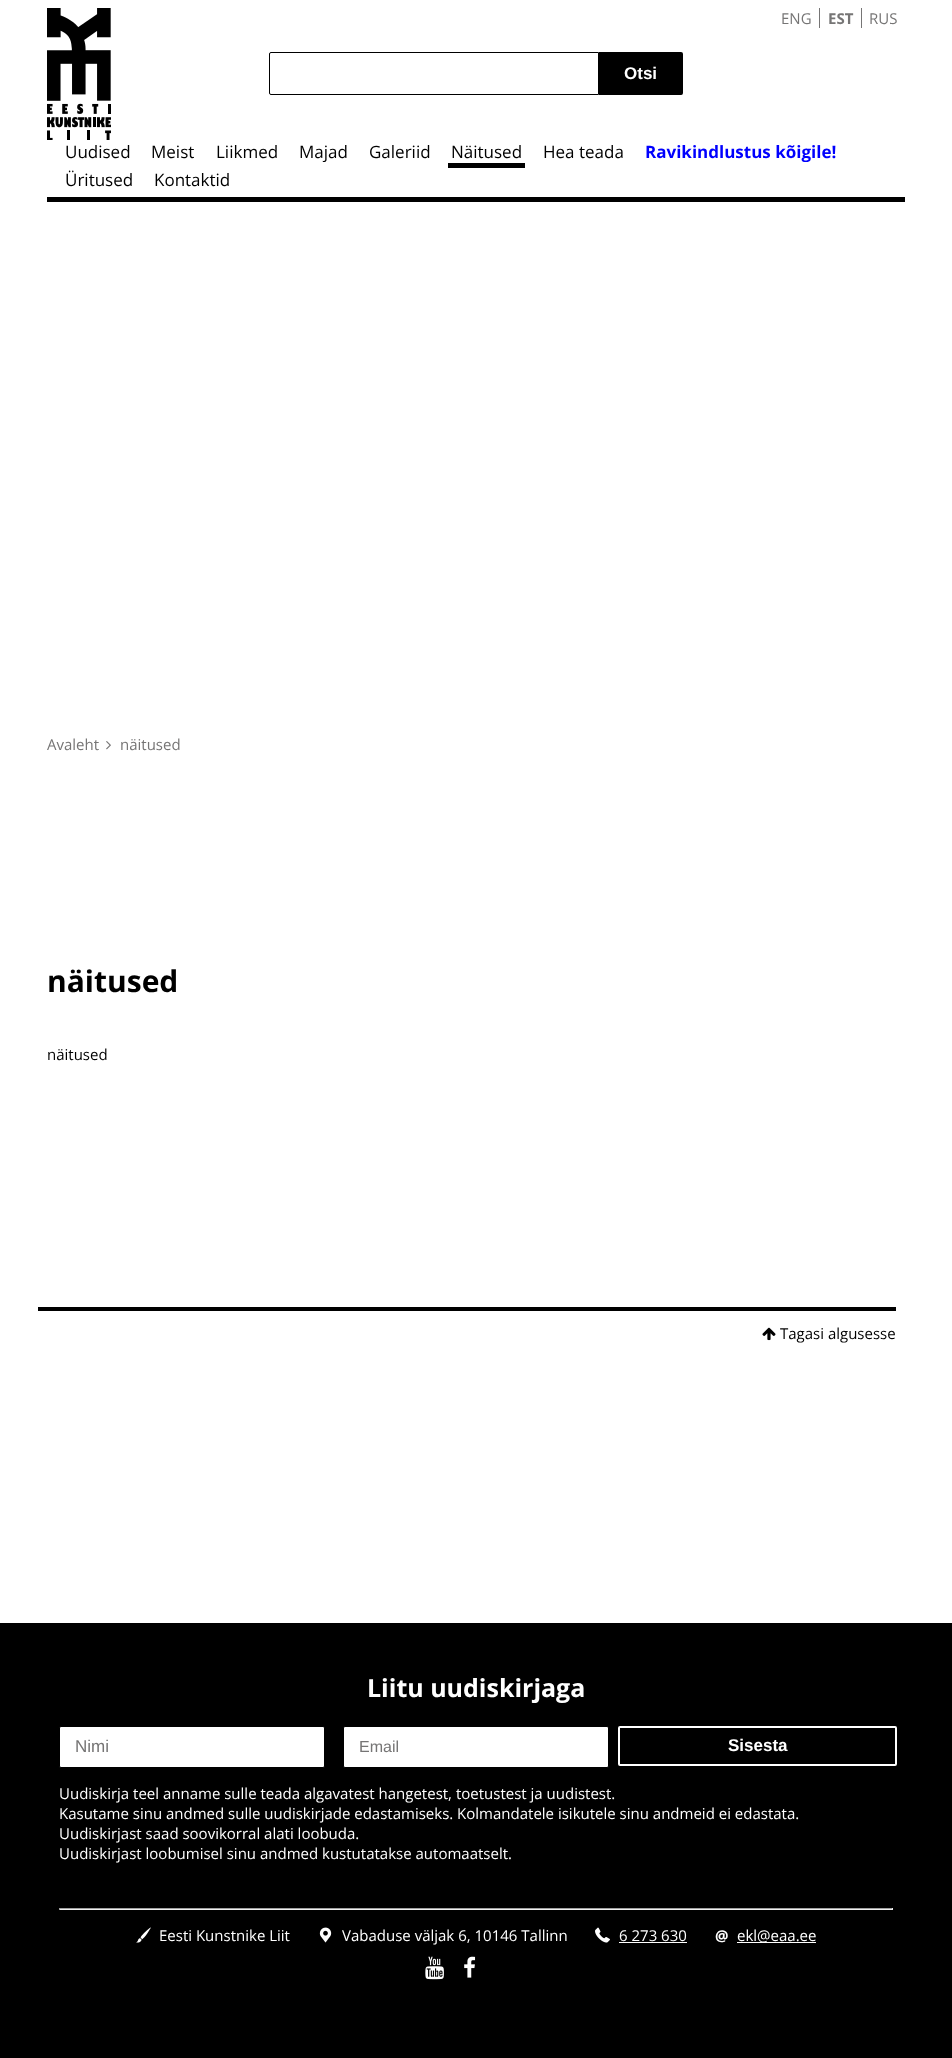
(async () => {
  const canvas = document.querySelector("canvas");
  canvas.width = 952;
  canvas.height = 2058;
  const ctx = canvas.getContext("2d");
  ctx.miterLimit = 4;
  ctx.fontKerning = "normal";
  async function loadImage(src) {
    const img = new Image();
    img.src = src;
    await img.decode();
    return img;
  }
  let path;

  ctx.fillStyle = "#ffffff";
  ctx.fillRect(0, 0, 952, 2058);
  ctx.drawImage(await loadImage("img/1.png"), 47, 8, 64, 132);
  ctx.fillStyle = "#767575";
  ctx.fillRect(819, 8, 1, 20);
  ctx.fillRect(861, 8, 1, 20);
  ctx.beginPath();
  ctx.roundRect(269.5, 52.5, 329, 42, [1.5, 0, 0, 1.5]);
  ctx.strokeStyle = "#000000";
  ctx.stroke();
  ctx.fillStyle = "#000000";
  ctx.beginPath();
  ctx.roundRect(599, 52, 84, 43, [0, 2, 2, 0]);
  ctx.fill();
  path = new Path2D("M682 95H600L602 94H680Z");
  ctx.fill(path);
  ctx.fillRect(47, 197, 858, 5);
  ctx.fillRect(448, 163, 77, 5);
  ctx.drawImage(await loadImage("img/2.png"), 106, 741, 5, 9);
  ctx.fillRect(38, 1307, 858, 4);
  ctx.drawImage(await loadImage("img/3.png"), 762, 1327, 14, 14);
  ctx.fillRect(0, 1623, 952, 435);
  ctx.fillStyle = "#ffffff";
  ctx.beginPath();
  ctx.roundRect(59.5, 1726.5, 265, 41, 1.5);
  ctx.fill();
  ctx.stroke();
  ctx.beginPath();
  ctx.roundRect(343.5, 1726.5, 265, 41, 1.5);
  ctx.fill();
  ctx.stroke();
  ctx.beginPath();
  ctx.roundRect(619, 1727, 277, 38, 1);
  ctx.strokeStyle = "#ffffff";
  ctx.lineWidth = 2;
  ctx.stroke();
  for (const [x, y, w, h, color] of [
    [59, 1908, 834, 1, "#9f9f9f"],
    [892, 1908, 1, 2, "#eeeeee"],
    [59, 1909, 834, 1, "#eeeeee"],
    [59, 1908, 1, 2, "#9f9f9f"],
  ]) {
    ctx.fillStyle = color;
    ctx.fillRect(x, y, w, h);
  }
  ctx.drawImage(await loadImage("img/4.png"), 136, 1927, 15, 16);
  ctx.drawImage(await loadImage("img/5.png"), 319, 1927, 13, 16);
  ctx.drawImage(await loadImage("img/6.png"), 595, 1927, 15, 16);
  ctx.fillStyle = "#ffffff";
  ctx.fillRect(619, 1942, 68, 1);
  ctx.fillRect(737, 1942, 79, 1);
  ctx.drawImage(await loadImage("img/7.png"), 425, 1956, 19, 24);
  ctx.drawImage(await loadImage("img/8.png"), 464, 1956, 12, 22);
  ctx.font = "15px Open Sans";
  ctx.fillStyle = "#767575";
  ctx.fillText("ENG", 781, 24);
  ctx.font = "bold 15px Open Sans";
  ctx.fillText("EST", 828, 24);
  ctx.font = "15px Open Sans";
  ctx.fillText("RUS", 869, 24);
  ctx.font = "bold 17px Liberation Sans";
  ctx.fillStyle = "#ffffff";
  ctx.fillText("Otsi", 624, 79);
  ctx.font = "17px Open Sans";
  ctx.fillStyle = "#000000";
  for (const [text, x, y] of [
    ["Uudised", 65, 158],
    ["Meist", 151, 158],
    ["Liikmed", 216, 158],
    ["Majad", 299, 158],
    ["Galeriid", 369, 158],
    ["Näitused", 451, 158],
    ["Hea teada", 543, 158],
  ]) {
    ctx.fillText(text, x, y);
  }
  ctx.font = "bold 17px Open Sans";
  ctx.fillStyle = "#0000fe";
  ctx.fillText("Ravikindlustus kõigile!", 645, 158);
  ctx.font = "17px Open Sans";
  ctx.fillStyle = "#000000";
  ctx.fillText("Üritused", 65, 186);
  ctx.fillText("Kontaktid", 154, 186);
  ctx.font = "15px Open Sans";
  ctx.fillStyle = "#767575";
  ctx.fillText("Avaleht", 47, 750);
  ctx.fillText("näitused", 120, 750);
  ctx.font = "bold 30px Open Sans";
  ctx.fillStyle = "#000000";
  ctx.fillText("näitused", 47, 992);
  ctx.font = "15px Open Sans";
  ctx.fillText("näitused", 47, 1060);
  ctx.fillText("Tagasi algusesse", 780, 1339);
  ctx.font = "bold 25px Open Sans";
  ctx.fillStyle = "#ffffff";
  ctx.fillText("Liitu uudiskirjaga", 367, 1697);
  ctx.font = "17px Liberation Sans";
  ctx.fillStyle = "#767575";
  ctx.fillText("Nimi", 75, 1752);
  ctx.font = "16px Liberation Sans";
  ctx.fillText("Email", 359, 1752);
  ctx.font = "bold 17px Liberation Sans";
  ctx.fillStyle = "#ffffff";
  ctx.fillText("Sisesta", 728, 1751);
  ctx.font = "15px Open Sans";
  for (const [text, x, y] of [
    ["Uudiskirja teel anname sulle teada algavatest hangetest, toetustest ja uudistest.", 59, 1799],
    ["Kasutame sinu andmed sulle uudiskirjade edastamiseks. Kolmandatele isikutele sinu andmeid ei edastata.", 59, 1819],
    ["Uudiskirjast saad soovikorral alati loobuda.", 59, 1839],
    ["Uudiskirjast loobumisel sinu andmed kustutatakse automaatselt.", 59, 1859],
    ["Eesti Kunstnike Liit", 159, 1941],
    ["Vabaduse väljak 6, 10146 Tallinn", 342, 1941],
    ["6 273 630", 619, 1941],
  ]) {
    ctx.fillText(text, x, y);
  }
  ctx.font = "bold 15px Open Sans";
  ctx.fillText("@", 715, 1941);
  ctx.font = "15px Open Sans";
  ctx.fillText("ekl@eaa.ee", 737, 1941);
})();
